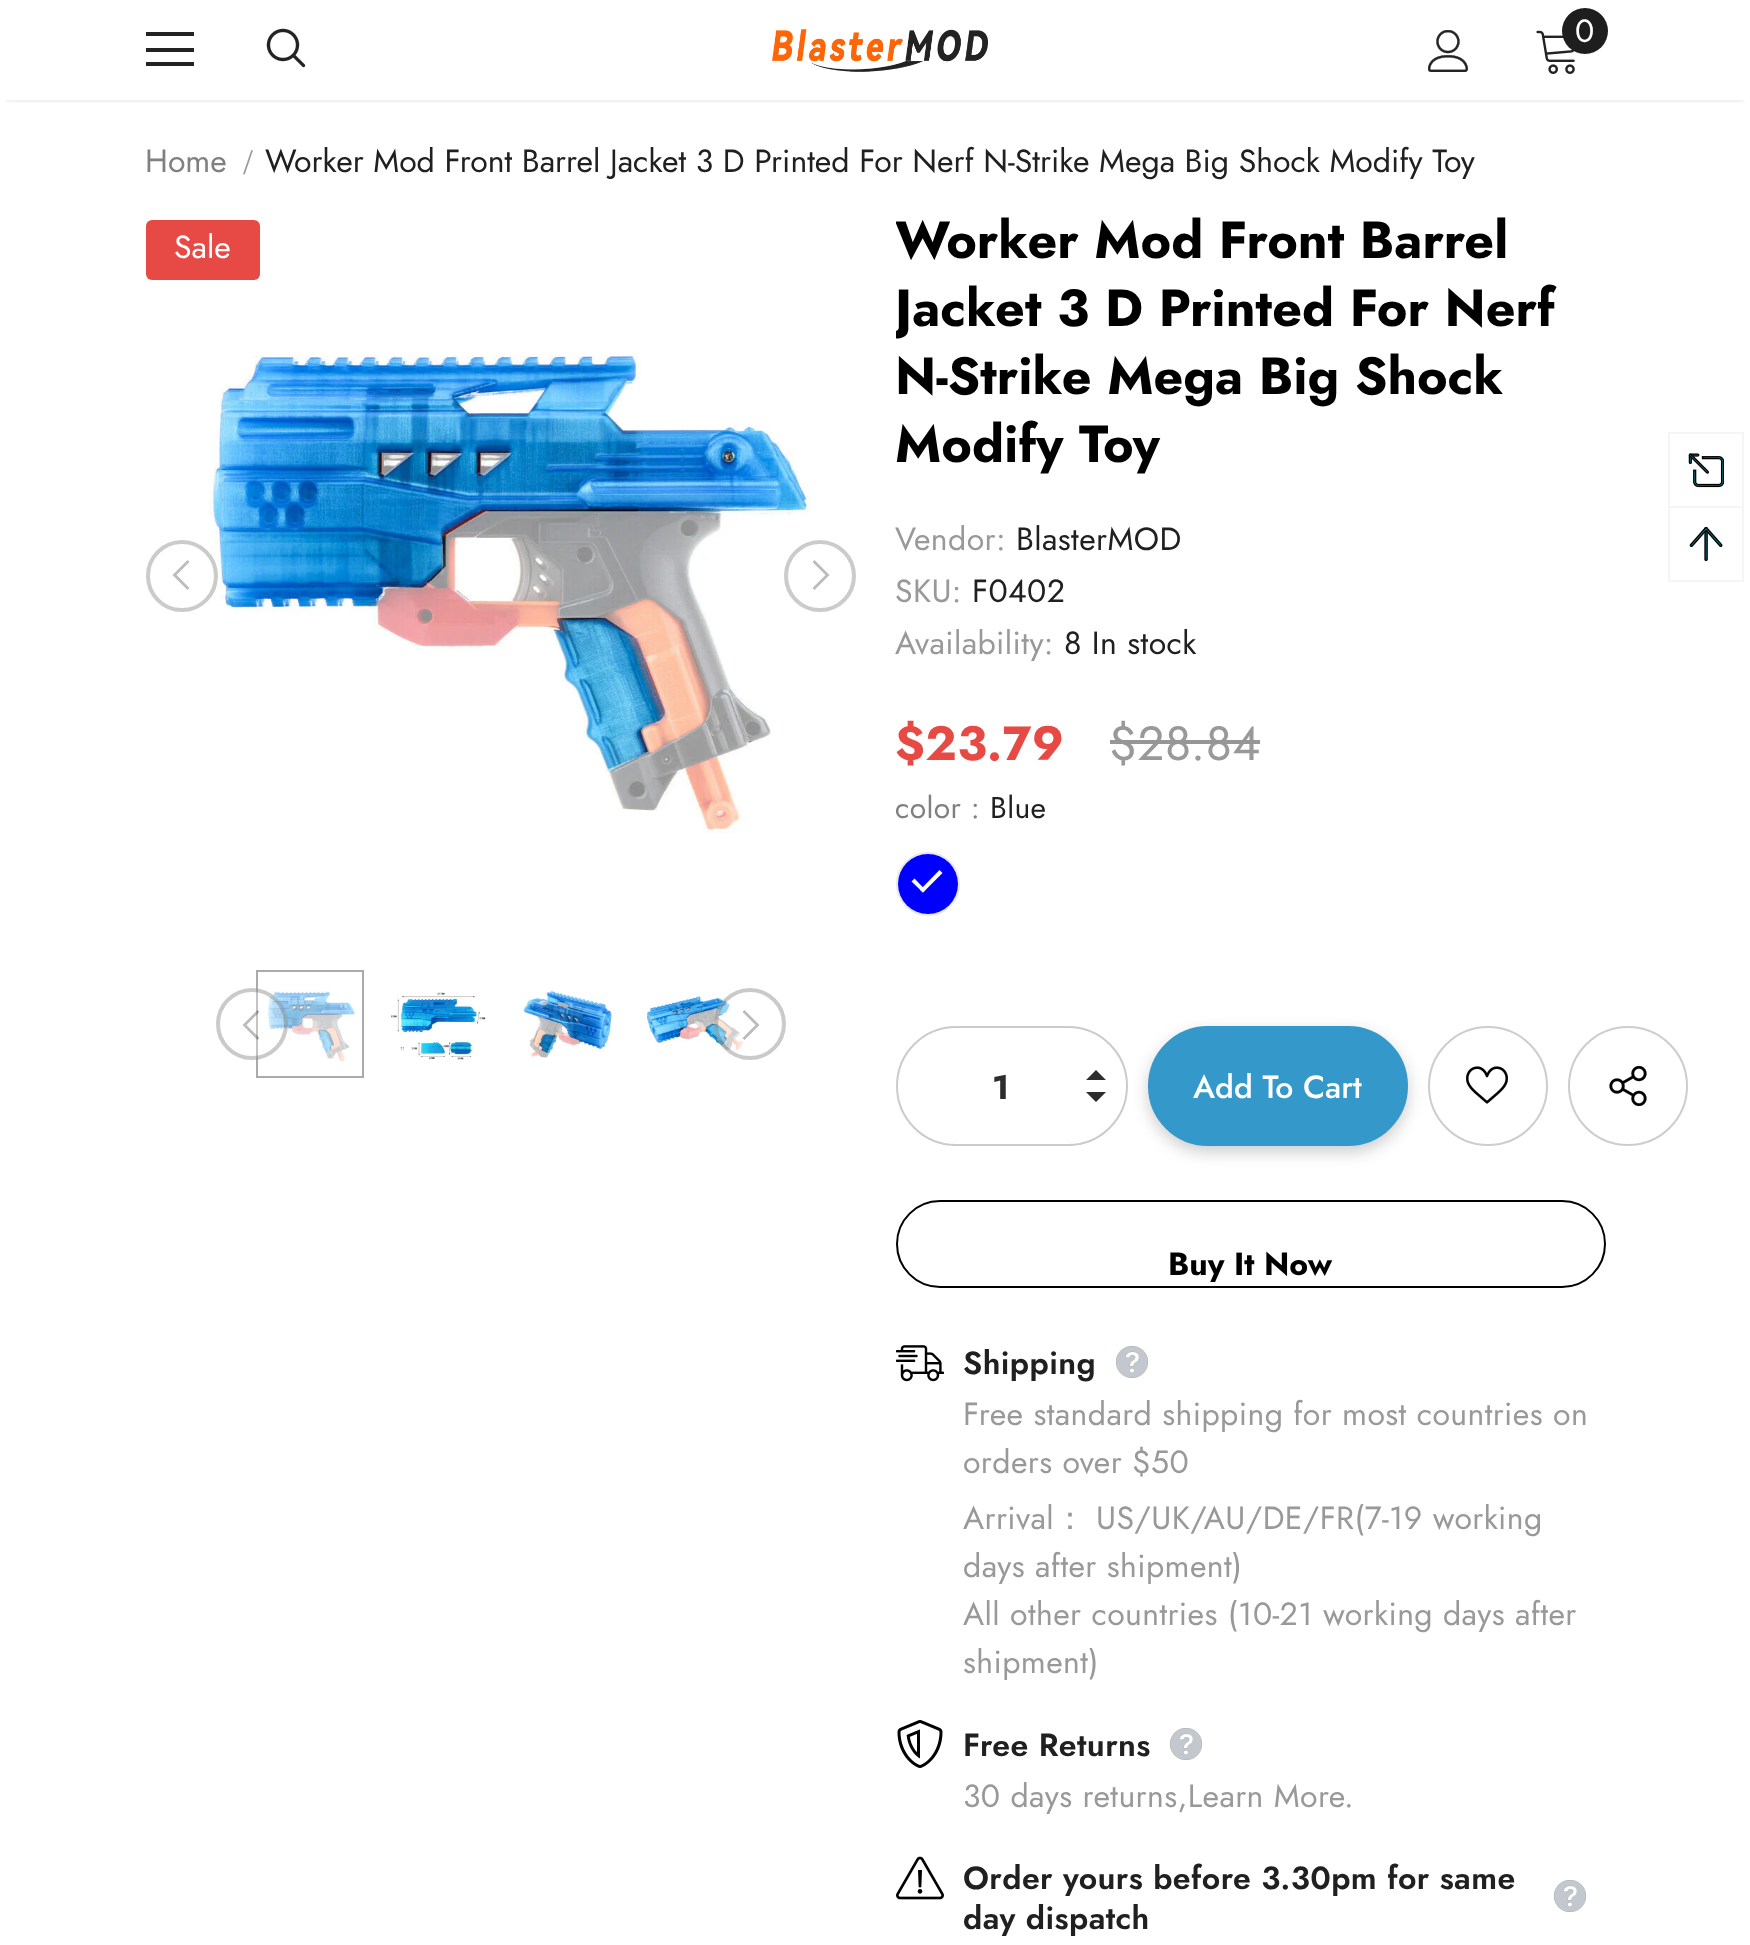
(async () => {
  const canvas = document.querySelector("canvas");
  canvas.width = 1750;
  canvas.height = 1945;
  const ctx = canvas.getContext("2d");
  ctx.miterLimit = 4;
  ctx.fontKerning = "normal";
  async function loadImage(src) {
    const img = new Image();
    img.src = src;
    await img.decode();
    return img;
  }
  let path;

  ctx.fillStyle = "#ffffff";
  ctx.fillRect(0, 0, 1750, 1945);
  ctx.save();
  ctx.beginPath();
  ctx.rect(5, 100, 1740, 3);
  ctx.clip();
  ctx.fillStyle = "rgba(0, 0, 0, 0.12)";
  ctx.filter = "blur(3px)";
  ctx.beginPath();
  ctx.rect(6, 12, 1738, 88);
  ctx.fill();
  ctx.filter = "none";
  ctx.restore();
  for (const [x, y, w, h, color] of [
    [146, 32, 48, 4, "#232323"],
    [146, 48, 48, 4, "#232323"],
    [146, 62, 48, 4, "#232323"],
  ]) {
    ctx.fillStyle = color;
    ctx.fillRect(x, y, w, h);
  }
  ctx.drawImage(await loadImage("img/1.png"), 266, 28, 40, 40);
  ctx.drawImage(await loadImage("img/2.png"), 772, 29, 216, 43);
  ctx.drawImage(await loadImage("img/3.png"), 1428, 30, 41, 42);
  ctx.drawImage(await loadImage("img/4.png"), 1536, 30, 39, 44);
  ctx.fillStyle = "#1e1e1e";
  ctx.beginPath();
  ctx.arc(1585, 31, 23, 0, Math.PI * 2);
  ctx.fill();
  ctx.fillStyle = "#e74a45";
  ctx.beginPath();
  ctx.roundRect(146, 220, 114, 60, 6);
  ctx.fill();
  ctx.drawImage(await loadImage("img/5.png"), 209, 355, 602, 479);
  ctx.beginPath();
  ctx.arc(182, 576, 34, 0, Math.PI * 2);
  ctx.strokeStyle = "#cbcbcb";
  ctx.lineWidth = 4;
  ctx.stroke();
  ctx.fillStyle = "#bcbcbc";
  path = new Path2D("M189.5 562L187.5 560L172.5 575L187.5 590L189.5 588L176.5 575Z");
  ctx.fill(path);
  ctx.beginPath();
  ctx.arc(820, 576, 34, 0, Math.PI * 2);
  ctx.stroke();
  path = new Path2D("M814.5 560L812.5 562L825.5 575L812.5 588L814.5 590L829.5 575Z");
  ctx.fill(path);
  ctx.strokeStyle = "#ababab";
  ctx.lineWidth = 2;
  ctx.strokeRect(257, 971, 106, 106);
  ctx.drawImage(await loadImage("img/6.png"), 267, 991, 89, 71);
  ctx.fillStyle = "rgba(255, 255, 255, 0.3)";
  ctx.beginPath();
  ctx.arc(252, 1024, 36, 0, Math.PI * 2);
  ctx.fill();
  ctx.beginPath();
  ctx.arc(252, 1024, 34, 0, Math.PI * 2);
  ctx.strokeStyle = "rgba(80, 80, 80, 0.3)";
  ctx.lineWidth = 4;
  ctx.stroke();
  ctx.fillStyle = "rgba(33, 33, 33, 0.3)";
  path = new Path2D("M259.5 1012L257.5 1010L242.5 1025L257.5 1040L259.5 1038L246.5 1025Z");
  ctx.fill(path);
  ctx.drawImage(await loadImage("img/7.png"), 391, 992, 95, 68);
  ctx.drawImage(await loadImage("img/8.png"), 522, 988, 91, 70);
  ctx.drawImage(await loadImage("img/9.png"), 646, 993, 100, 58);
  ctx.fillStyle = "rgba(255, 255, 255, 0.3)";
  ctx.beginPath();
  ctx.arc(750, 1024, 36, 0, Math.PI * 2);
  ctx.fill();
  ctx.beginPath();
  ctx.arc(750, 1024, 34, 0, Math.PI * 2);
  ctx.stroke();
  ctx.fillStyle = "#bcbcbc";
  path = new Path2D("M744.5 1010L742.5 1012L755.5 1025L742.5 1038L744.5 1040L759.5 1025Z");
  ctx.fill(path);
  ctx.beginPath();
  ctx.arc(928, 884, 31, 0, Math.PI * 2);
  ctx.strokeStyle = "#e7e7e7";
  ctx.lineWidth = 2;
  ctx.stroke();
  ctx.fillStyle = "#0000ff";
  ctx.beginPath();
  ctx.arc(928, 884, 30, 0, Math.PI * 2);
  ctx.fill();
  ctx.fillStyle = "#ffffff";
  path = new Path2D("M920 890L939.5 870L942.5 873L923 892.5Z");
  ctx.fill(path);
  path = new Path2D("M911.5 881.5L914.5 878.5L925.5 890L923 892.5Z");
  ctx.fill(path);
  ctx.fillStyle = "rgba(0, 0, 0, 0.2)";
  ctx.filter = "blur(8px)";
  ctx.beginPath();
  ctx.roundRect(1148, 1032, 260, 120, 60);
  ctx.fill();
  ctx.filter = "none";
  ctx.beginPath();
  ctx.roundRect(897, 1027, 230, 118, 59);
  ctx.strokeStyle = "#cbcbcb";
  ctx.stroke();
  ctx.fillStyle = "#2d2d2d";
  path = new Path2D("M1086 1092H1106L1096 1102ZM1106 1080H1086L1096 1070Z");
  ctx.fill(path);
  ctx.fillStyle = "#3498ca";
  ctx.beginPath();
  ctx.roundRect(1149, 1027, 258, 118, 59);
  ctx.fill();
  ctx.strokeStyle = "#3498ca";
  ctx.stroke();
  ctx.beginPath();
  ctx.arc(1488, 1086, 59, 0, Math.PI * 2);
  ctx.strokeStyle = "#cdcdcd";
  ctx.stroke();
  ctx.drawImage(await loadImage("img/10.png"), 1466, 1066, 42, 38);
  ctx.beginPath();
  ctx.arc(1628, 1086, 59, 0, Math.PI * 2);
  ctx.stroke();
  ctx.drawImage(await loadImage("img/11.png"), 1609, 1066, 38, 40);
  ctx.beginPath();
  ctx.roundRect(897, 1201, 708, 86, 43);
  ctx.strokeStyle = "#000000";
  ctx.stroke();
  ctx.drawImage(await loadImage("img/12.png"), 896, 1345, 48, 37);
  ctx.drawImage(await loadImage("img/13.png"), 1116, 1346, 32, 32);
  ctx.drawImage(await loadImage("img/14.png"), 897, 1720, 46, 48);
  ctx.drawImage(await loadImage("img/13.png"), 1170, 1728, 32, 32);
  ctx.drawImage(await loadImage("img/15.png"), 896, 1856, 48, 44);
  ctx.drawImage(await loadImage("img/13.png"), 1554, 1880, 32, 32);
  for (const [x, y, w, h, color] of [
    [1668, 432, 76, 2, "#f5f5f6"],
    [1742, 432, 2, 74, "#f5f5f6"],
    [1668, 432, 2, 74, "#f5f5f6"],
  ]) {
    ctx.fillStyle = color;
    ctx.fillRect(x, y, w, h);
  }
  ctx.drawImage(await loadImage("img/16.png"), 1688, 453, 36, 35);
  ctx.strokeStyle = "#f5f5f6";
  ctx.strokeRect(1669, 507, 74, 74);
  ctx.drawImage(await loadImage("img/17.png"), 1689, 526, 34, 36);
  ctx.font = "32px Jost";
  ctx.fillStyle = "#ffffff";
  ctx.fillText("0", 1575, 42);
  ctx.fillStyle = "#808080";
  ctx.fillText("Home", 145, 172);
  ctx.font = "36px Liberation Serif";
  ctx.fillStyle = "#999999";
  ctx.fillText("/", 243, 174);
  ctx.font = "32px Jost";
  ctx.fillStyle = "#202020";
  ctx.fillText("Worker Mod Front Barrel Jacket 3 D Printed For Nerf N-Strike Mega Big Shock Modify Toy", 265, 172);
  ctx.fillStyle = "#ffffff";
  ctx.fillText("Sale", 174, 258);
  ctx.save();
  ctx.beginPath();
  ctx.rect(896, 206, 710, 272);
  ctx.clip();
  ctx.font = "bold 52px Jost";
  ctx.fillStyle = "#000000";
  ctx.fillText("Worker Mod Front Barrel", 895, 258);
  ctx.fillText("Jacket 3 D Printed For Nerf", 895, 326);
  ctx.restore();
  ctx.font = "bold 52px Jost";
  ctx.fillStyle = "#000000";
  ctx.fillText("N-Strike Mega Big Shock", 895, 394);
  ctx.fillText("Modify Toy", 895, 462);
  ctx.letterSpacing = "0.4px";
  ctx.font = "32px Jost";
  ctx.fillStyle = "#999999";
  ctx.fillText("Vendor:", 895, 550);
  ctx.fillStyle = "#202020";
  ctx.fillText("BlasterMOD", 1016, 550);
  ctx.fillStyle = "#999999";
  ctx.fillText("SKU:", 895, 602);
  ctx.fillStyle = "#202020";
  ctx.fillText("F0402", 972, 602);
  ctx.fillStyle = "#999999";
  ctx.fillText("Availability:", 895, 654);
  ctx.fillStyle = "#202020";
  ctx.fillText("8 In stock", 1064, 654);
  ctx.font = "bold 48px Jost";
  ctx.fillStyle = "#e74a45";
  ctx.fillText("$23.79", 895, 760);
  ctx.font = "48px Jost";
  ctx.fillStyle = "#999999";
  ctx.fillText("$28.84", 1109, 760);
  ctx.fillStyle = "#969696";
  ctx.fillRect(1110, 740, 150, 4);
  ctx.font = "30px Jost";
  ctx.fillStyle = "#808080";
  ctx.fillText("color :", 895, 818);
  ctx.fillStyle = "#202020";
  ctx.fillText("Blue", 990, 818);
  ctx.letterSpacing = "0px";
  ctx.font = "bold 34px Jost";
  ctx.fillStyle = "#2d2d2d";
  ctx.fillText("1", 992, 1099);
  ctx.font = "500 32px Jost";
  ctx.fillStyle = "#ffffff";
  ctx.fillText("Add To Cart", 1193, 1098);
  ctx.font = "bold 32px Jost";
  ctx.fillStyle = "#000000";
  ctx.fillText("Buy It Now", 1168, 1275);
  ctx.letterSpacing = "0.4px";
  ctx.font = "600 32px Jost";
  ctx.fillStyle = "#202020";
  ctx.fillText("Shipping", 963, 1374);
  ctx.font = "32px Jost";
  ctx.fillStyle = "#999999";
  for (const [text, x, y] of [
    ["Free standard shipping for most countries on", 963, 1425],
    ["orders over $50", 963, 1473],
    ["Arrival", 963, 1529],
  ]) {
    ctx.fillText(text, x, y);
  }
  ctx.font = "500 32px WenQuanYi Zen Hei";
  ctx.fillText("：", 1054, 1529);
  ctx.font = "32px Jost";
  for (const [text, x, y] of [
    ["US/UK/AU/DE/FR(7-19 working", 1096, 1529],
    ["days after shipment)", 963, 1577],
    ["All other countries (10-21 working days after", 963, 1625],
    ["shipment)", 963, 1673],
  ]) {
    ctx.fillText(text, x, y);
  }
  ctx.font = "600 32px Jost";
  ctx.fillStyle = "#202020";
  ctx.fillText("Free Returns", 963, 1756);
  ctx.font = "32px Jost";
  ctx.fillStyle = "#999999";
  ctx.fillText("30 days returns,Learn More.", 963, 1807);
  ctx.font = "600 32px Jost";
  ctx.fillStyle = "#202020";
  ctx.fillText("Order yours before 3.30pm for same", 963, 1889);
  ctx.fillText("day dispatch", 963, 1929);
})();
